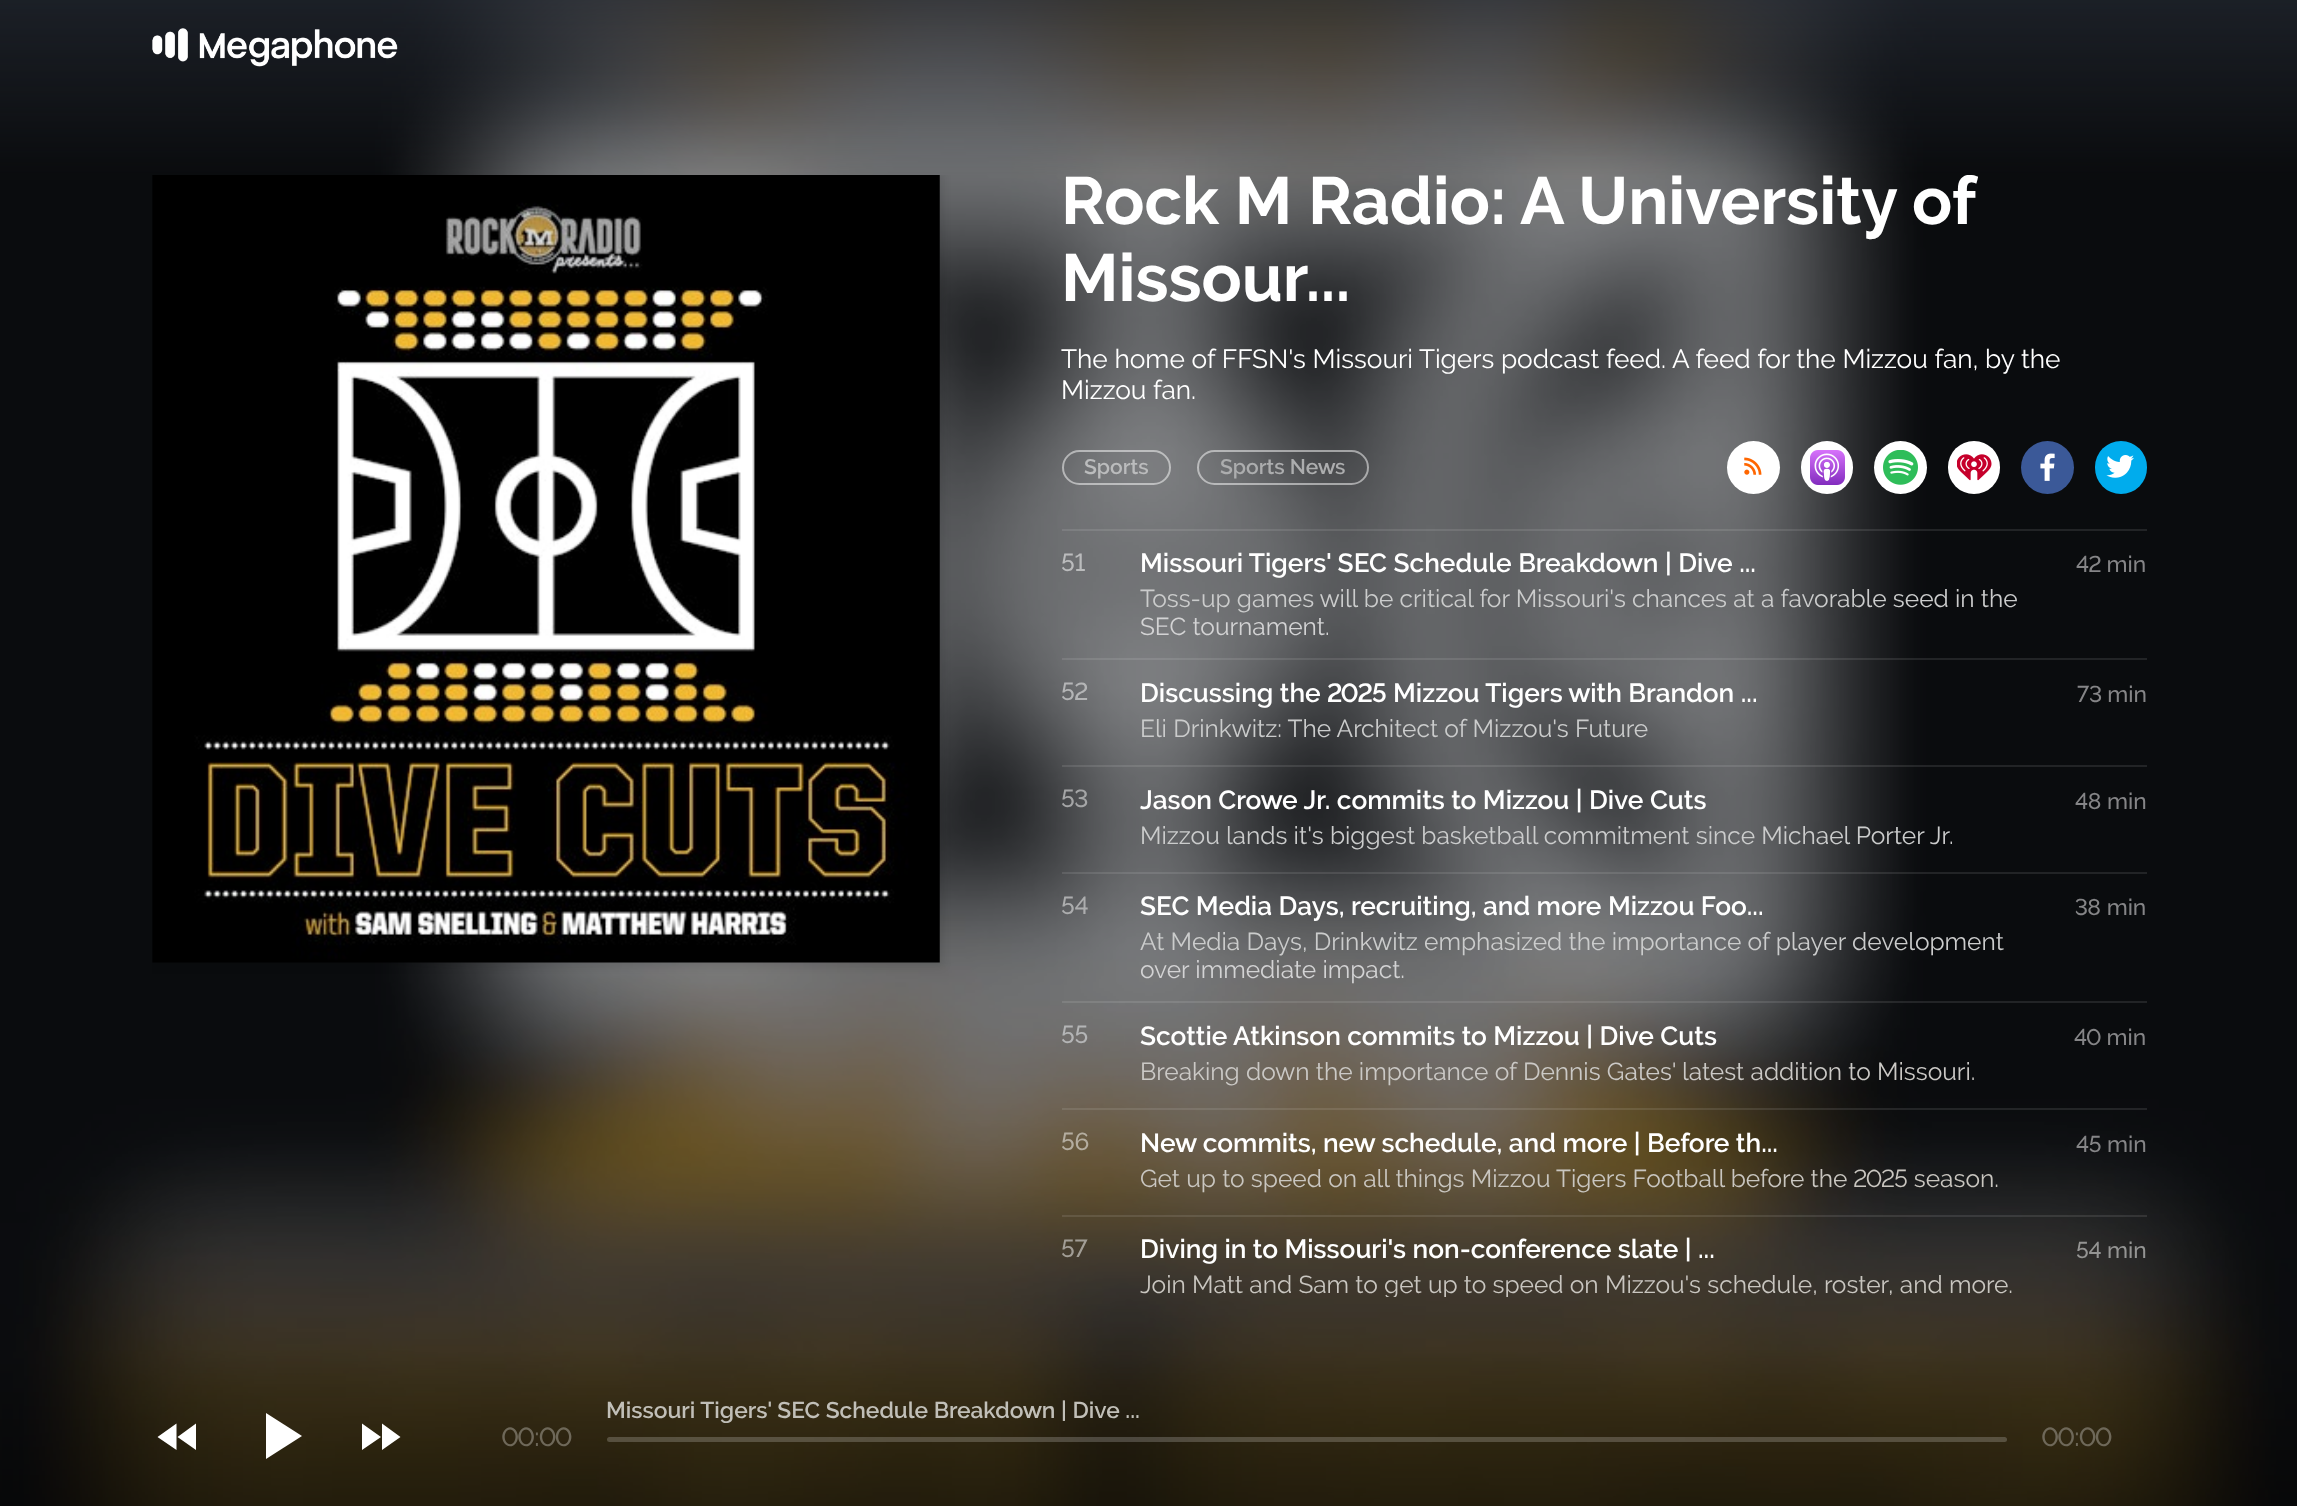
(async () => {
  const canvas = document.querySelector("canvas");
  canvas.width = 2297;
  canvas.height = 1506;
  const ctx = canvas.getContext("2d");
  ctx.miterLimit = 4;
  ctx.fontKerning = "normal";
  async function loadImage(src) {
    const img = new Image();
    img.src = src;
    await img.decode();
    return img;
  }
  let path;

  ctx.fillStyle = "#ffffff";
  ctx.fillRect(0, 0, 2297, 1506);
  ctx.drawImage(await loadImage("img/1.png"), 0, 0, 2297, 1506);
  ctx.drawImage(await loadImage("img/2.png"), 152, 28, 246, 39);
  ctx.save();
  ctx.beginPath();
  ctx.rect(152, 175, 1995, 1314);
  ctx.clip();
  ctx.fillStyle = "rgba(0, 0, 0, 0.1)";
  ctx.filter = "blur(4.5px)";
  ctx.beginPath();
  ctx.rect(149, 172, 794, 794);
  ctx.fill();
  ctx.filter = "none";
  ctx.restore();
  ctx.drawImage(await loadImage("img/3.png"), 152, 175, 788, 788);
  ctx.beginPath();
  ctx.roundRect(1063, 451, 107, 33, 16.5);
  ctx.strokeStyle = "rgba(255, 255, 255, 0.5)";
  ctx.lineWidth = 2;
  ctx.stroke();
  ctx.beginPath();
  ctx.roundRect(1198, 451, 170, 33, 16.5);
  ctx.stroke();
  ctx.beginPath();
  ctx.arc(1753.5, 467.5, 26.5, 0, Math.PI * 2);
  ctx.fill();
  ctx.drawImage(await loadImage("img/4.png"), 1744, 457, 18, 18);
  ctx.beginPath();
  ctx.roundRect(1801, 441, 52, 53, 26);
  ctx.fill();
  ctx.drawImage(await loadImage("img/5.png"), 1810, 450, 35, 35);
  ctx.beginPath();
  ctx.arc(1900.5, 467.5, 26.5, 0, Math.PI * 2);
  ctx.fill();
  ctx.drawImage(await loadImage("img/6.png"), 1883, 450, 35, 35);
  ctx.beginPath();
  ctx.roundRect(1948, 441, 52, 53, 26);
  ctx.fill();
  ctx.drawImage(await loadImage("img/7.png"), 1957, 454, 35, 27);
  ctx.fillStyle = "#3b5998";
  ctx.beginPath();
  ctx.arc(2047.5, 467.5, 26.5, 0, Math.PI * 2);
  ctx.fill();
  ctx.drawImage(await loadImage("img/8.png"), 2040, 453, 15, 28);
  ctx.fillStyle = "#00aced";
  ctx.beginPath();
  ctx.roundRect(2095, 441, 52, 53, 26);
  ctx.fill();
  ctx.drawImage(await loadImage("img/9.png"), 2106, 455, 28, 23);
  for (const [x, y, w, h, color] of [
    [1062, 529, 1085, 2, "rgba(255, 255, 255, 0.1)"],
    [1062, 658, 1085, 2, "rgba(255, 255, 255, 0.1)"],
    [1062, 765, 1085, 2, "rgba(255, 255, 255, 0.1)"],
    [1062, 872, 1085, 2, "rgba(255, 255, 255, 0.1)"],
    [1062, 1001, 1085, 2, "rgba(255, 255, 255, 0.1)"],
    [1062, 1108, 1085, 2, "rgba(255, 255, 255, 0.1)"],
    [1062, 1215, 1085, 2, "rgba(255, 255, 255, 0.1)"],
  ]) {
    ctx.fillStyle = color;
    ctx.fillRect(x, y, w, h);
  }
  ctx.fillStyle = "#ffffff";
  path = new Path2D("M177.5 1437L196 1423.5V1450ZM176.5 1450L157.5 1437L176.5 1423.5Z");
  ctx.fill(path);
  path = new Path2D("M266 1413L302 1436L266 1459Z");
  ctx.fill(path);
  path = new Path2D("M382 1423.5L400.5 1437L382 1450ZM362 1450V1423.5L381 1437Z");
  ctx.fill(path);
  ctx.fillStyle = "rgba(255, 255, 255, 0.2)";
  ctx.beginPath();
  ctx.roundRect(607, 1437, 1400, 5, 2.5);
  ctx.fill();
  ctx.save();
  ctx.beginPath();
  ctx.rect(940, 175, 1207, 1122);
  ctx.clip();
  ctx.wordSpacing = "-0.25px";
  ctx.font = "bold 66.5px Raleway";
  ctx.fillStyle = "#ffffff";
  ctx.fillText("Rock M Radio: A University of", 1061, 224);
  ctx.restore();
  ctx.font = "bold 66.5px Raleway";
  ctx.fillStyle = "#ffffff";
  ctx.fillText("Missour...", 1061, 301);
  ctx.font = "26.25px Raleway";
  ctx.fillText("The home of FFSN's Missouri Tigers podcast feed. A feed for the Mizzou fan, by the", 1061, 368);
  ctx.fillText("Mizzou fan.", 1061, 399);
  ctx.font = "600 21px Raleway";
  ctx.fillStyle = "#bbbcbd";
  ctx.fillText("Sports", 1084, 474);
  ctx.fillStyle = "#acadae";
  ctx.fillText("Sports News", 1220, 474);
  ctx.font = "500 24.5px Raleway";
  ctx.fillStyle = "#bbbcbd";
  ctx.fillText("51", 1061, 571);
  ctx.font = "600 26.25px Raleway";
  ctx.fillStyle = "#ffffff";
  ctx.fillText("Missouri Tigers' SEC Schedule Breakdown | Dive ...", 1140, 572);
  ctx.font = "24.5px Raleway";
  ctx.fillStyle = "#cbcccc";
  ctx.fillText("Toss-up games will be critical for Missouri's chances at a favorable seed in the", 1140, 607);
  ctx.fillStyle = "#d3d3d4";
  ctx.fillText("SEC tournament.", 1140, 635);
  ctx.font = "500 22.75px Raleway";
  ctx.fillStyle = "#858587";
  ctx.fillText("42 min", 2076, 572);
  ctx.font = "500 24.5px Raleway";
  ctx.fillStyle = "#b4b5b6";
  ctx.fillText("52", 1061, 700);
  ctx.font = "600 26.25px Raleway";
  ctx.fillStyle = "#ffffff";
  ctx.fillText("Discussing the 2025 Mizzou Tigers with Brandon ...", 1140, 702);
  ctx.font = "24.5px Raleway";
  ctx.fillStyle = "#cbcccc";
  ctx.fillText("Eli Drinkwitz: The Architect of Mizzou's Future", 1140, 737);
  ctx.font = "500 22.75px Raleway";
  ctx.fillStyle = "#858587";
  ctx.fillText("73 min", 2077, 702);
  ctx.font = "500 24.5px Raleway";
  ctx.fillStyle = "#a5a6a7";
  ctx.fillText("53", 1061, 807);
  ctx.font = "600 26.25px Raleway";
  ctx.fillStyle = "#ffffff";
  ctx.fillText("Jason Crowe Jr. commits to Mizzou | Dive Cuts", 1140, 809);
  ctx.font = "24.5px Raleway";
  ctx.fillStyle = "#cbcccc";
  ctx.fillText("Mizzou lands it's biggest basketball commitment since Michael Porter Jr.", 1140, 844);
  ctx.font = "500 22.75px Raleway";
  ctx.fillStyle = "#858587";
  ctx.fillText("48 min", 2075, 809);
  ctx.font = "500 24.5px Raleway";
  ctx.fillStyle = "#acadae";
  ctx.fillText("54", 1061, 914);
  ctx.font = "600 26.25px Raleway";
  ctx.fillStyle = "#ffffff";
  ctx.fillText("SEC Media Days, recruiting, and more Mizzou Foo...", 1140, 915);
  ctx.font = "24.5px Raleway";
  ctx.fillStyle = "#cbcccc";
  ctx.fillText("At Media Days, Drinkwitz emphasized the importance of player development", 1140, 950);
  ctx.fillStyle = "#d3d3d4";
  ctx.fillText("over immediate impact.", 1140, 978);
  ctx.font = "500 22.75px Raleway";
  ctx.fillStyle = "#858587";
  ctx.fillText("38 min", 2075, 915);
  ctx.font = "500 24.5px Raleway";
  ctx.fillStyle = "#b4b5b6";
  ctx.fillText("55", 1061, 1043);
  ctx.font = "600 26.25px Raleway";
  ctx.fillStyle = "#ffffff";
  ctx.fillText("Scottie Atkinson commits to Mizzou | Dive Cuts", 1140, 1045);
  ctx.font = "24.5px Raleway";
  ctx.fillStyle = "#cbc9c6";
  ctx.fillText("Breaking down the importance of Dennis Gates' latest addition to Missouri.", 1140, 1080);
  ctx.font = "500 22.75px Raleway";
  ctx.fillStyle = "#858587";
  ctx.fillText("40 min", 2074, 1045);
  ctx.font = "500 24.5px Raleway";
  ctx.fillStyle = "#b4ada0";
  ctx.fillText("56", 1061, 1150);
  ctx.font = "600 26.25px Raleway";
  ctx.fillStyle = "#ffffff";
  ctx.fillText("New commits, new schedule, and more | Before th...", 1140, 1152);
  ctx.font = "24.5px Raleway";
  ctx.fillStyle = "#c9c6c0";
  ctx.fillText("Get up to speed on all things Mizzou Tigers Football before the 2025 season.", 1140, 1187);
  ctx.font = "500 22.75px Raleway";
  ctx.fillStyle = "#858587";
  ctx.fillText("45 min", 2076, 1152);
  ctx.font = "500 24.5px Raleway";
  ctx.fillStyle = "#a29e96";
  ctx.fillText("57", 1061, 1257);
  ctx.font = "600 26.25px Raleway";
  ctx.fillStyle = "#ffffff";
  ctx.fillText("Diving in to Missouri's non-conference slate | ...", 1140, 1258);
  ctx.save();
  ctx.beginPath();
  ctx.rect(940, 175, 1207, 1122);
  ctx.clip();
  ctx.font = "24.5px Raleway";
  ctx.fillStyle = "#c9c6c0";
  ctx.fillText("Join Matt and Sam to get up to speed on Mizzou's schedule, roster, and more.", 1140, 1293);
  ctx.restore();
  ctx.font = "500 22.75px Raleway";
  ctx.fillStyle = "#949493";
  ctx.fillText("54 min", 2076, 1258);
  ctx.font = "500 26.25px Raleway";
  ctx.fillStyle = "#6e6859";
  ctx.fillText("00:00", 502, 1446);
  ctx.font = "600 22.75px Raleway";
  ctx.fillStyle = "#c1bfb8";
  ctx.fillText("Missouri Tigers' SEC Schedule Breakdown | Dive ...", 606, 1418);
  ctx.font = "500 26.25px Raleway";
  ctx.fillStyle = "#6e6859";
  ctx.fillText("00:00", 2042, 1446);
})();
